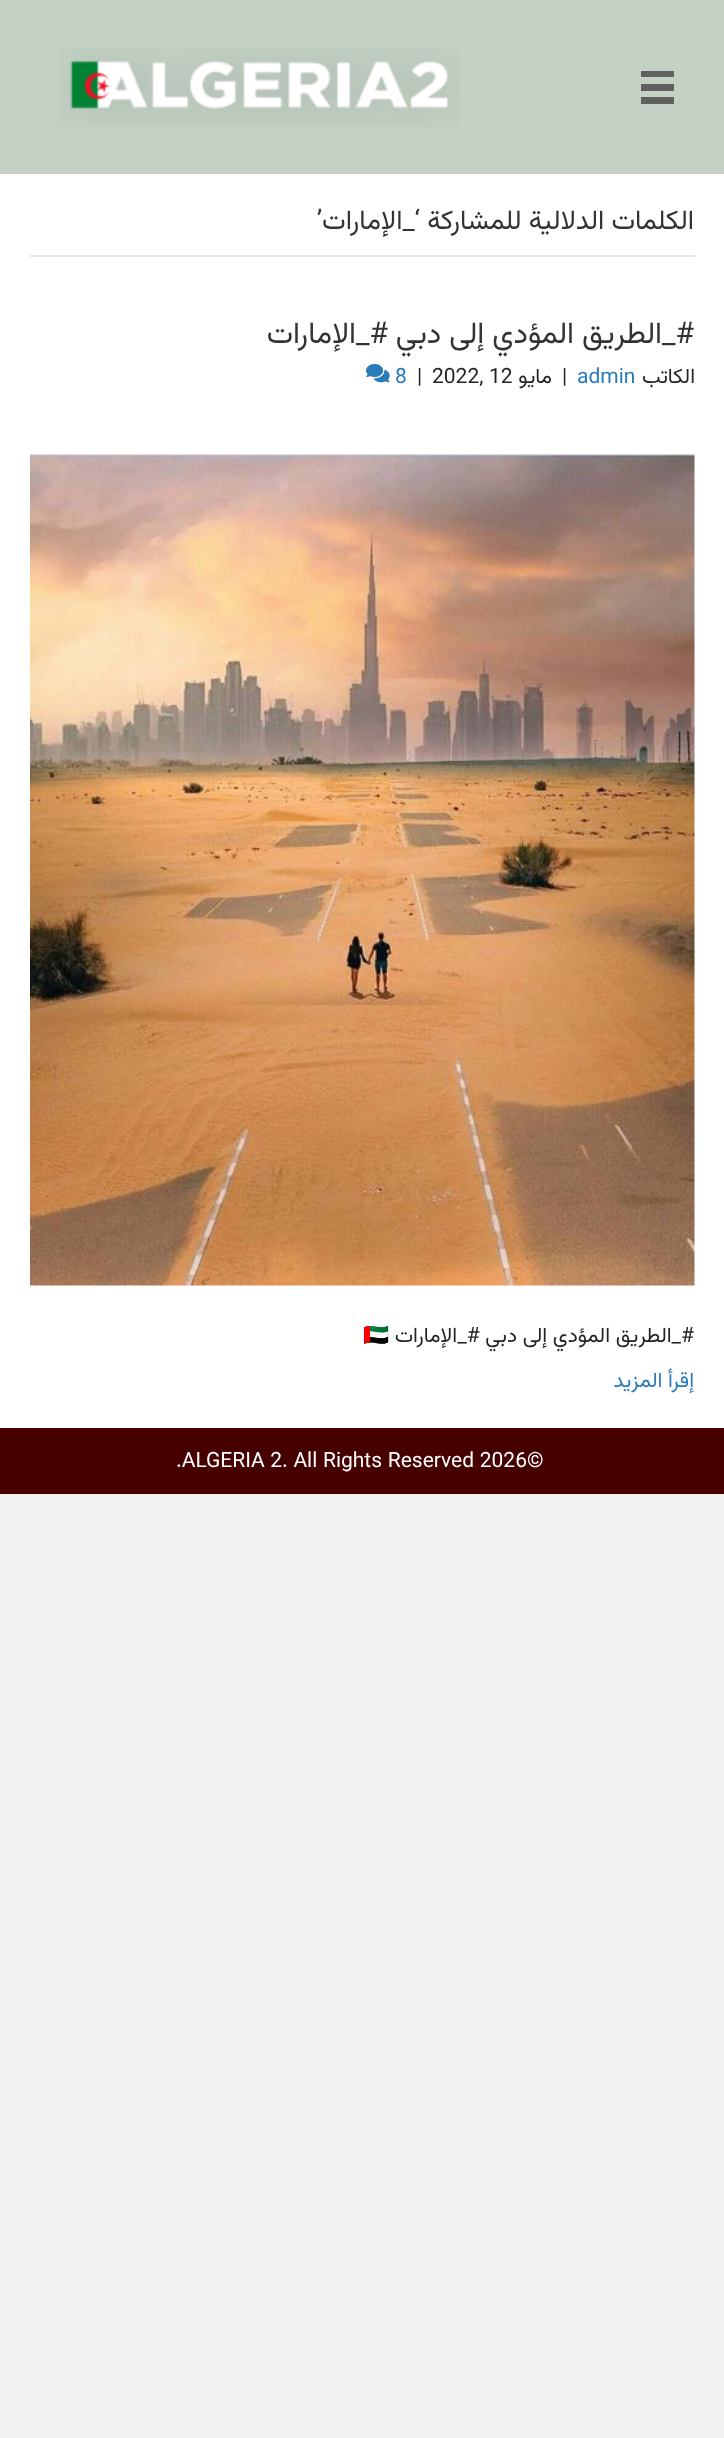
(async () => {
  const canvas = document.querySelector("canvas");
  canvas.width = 724;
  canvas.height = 2438;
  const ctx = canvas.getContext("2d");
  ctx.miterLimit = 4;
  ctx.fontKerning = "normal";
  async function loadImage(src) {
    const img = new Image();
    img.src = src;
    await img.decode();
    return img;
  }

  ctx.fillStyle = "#f2f2f2";
  ctx.fillRect(0, 0, 724, 2438);
  for (const [x, y, w, h, color] of [
    [0, 0, 724, 174, "#c4d2c6"],
    [641, 71, 33, 6, "#606060"],
    [641, 84, 33, 7, "#606060"],
    [641, 97, 33, 7, "#606060"],
  ]) {
    ctx.fillStyle = color;
    ctx.fillRect(x, y, w, h);
  }
  ctx.drawImage(await loadImage("img/1.png"), 59, 47, 401, 80);
  ctx.fillStyle = "#ffffff";
  ctx.fillRect(0, 174, 724, 1254);
  ctx.fillStyle = "#e6e6e6";
  ctx.fillRect(30, 255, 665, 2);
  ctx.drawImage(await loadImage("img/2.png"), 366, 363, 24, 20);
  ctx.drawImage(await loadImage("img/3.png"), 30, 454, 665, 832);
  ctx.fillStyle = "#470000";
  ctx.fillRect(0, 1428, 724, 66);
  ctx.direction = "rtl";
  ctx.font = "27px Vazirmatn";
  ctx.fillStyle = "#333333";
  ctx.fillText("الكلمات الدلالية للمشاركة", 694, 229);
  ctx.fillText("‘_الإمارات’", 420, 229);
  ctx.font = "30px Vazirmatn";
  ctx.fillText("#_الطريق المؤدي إلى دبي", 694, 343);
  ctx.fillText("#_الإمارات", 388, 343);
  ctx.font = "21px Vazirmatn";
  ctx.fillStyle = "#232323";
  ctx.fillText("الكاتب", 695, 383);
  ctx.direction = "ltr";
  ctx.fillStyle = "#2b7bb9";
  ctx.fillText("admin", 577, 383);
  ctx.fillStyle = "#232323";
  ctx.fillText("|", 562, 383);
  ctx.direction = "rtl";
  ctx.fillText("مايو", 552, 383);
  ctx.direction = "ltr";
  ctx.fillText("2022, 12", 432, 383);
  ctx.fillText("|", 417, 383);
  ctx.fillStyle = "#2b7bb9";
  ctx.fillText("8", 395, 383);
  ctx.direction = "rtl";
  ctx.fillStyle = "#232323";
  ctx.fillText("#_الطريق المؤدي إلى دبي #_الإمارات", 694, 1342);
  ctx.direction = "ltr";
  ctx.font = "21px Noto Color Emoji";
  ctx.fillText("🇦🇪", 363, 1342);
  ctx.direction = "rtl";
  ctx.font = "21px Vazirmatn";
  ctx.fillStyle = "#2b7bb9";
  ctx.fillText("إقرأ المزيد", 694, 1387);
  ctx.direction = "ltr";
  ctx.fillStyle = "#ffffff";
  ctx.fillText(".ALGERIA 2. All Rights Reserved 2026©", 176, 1467);
})();
